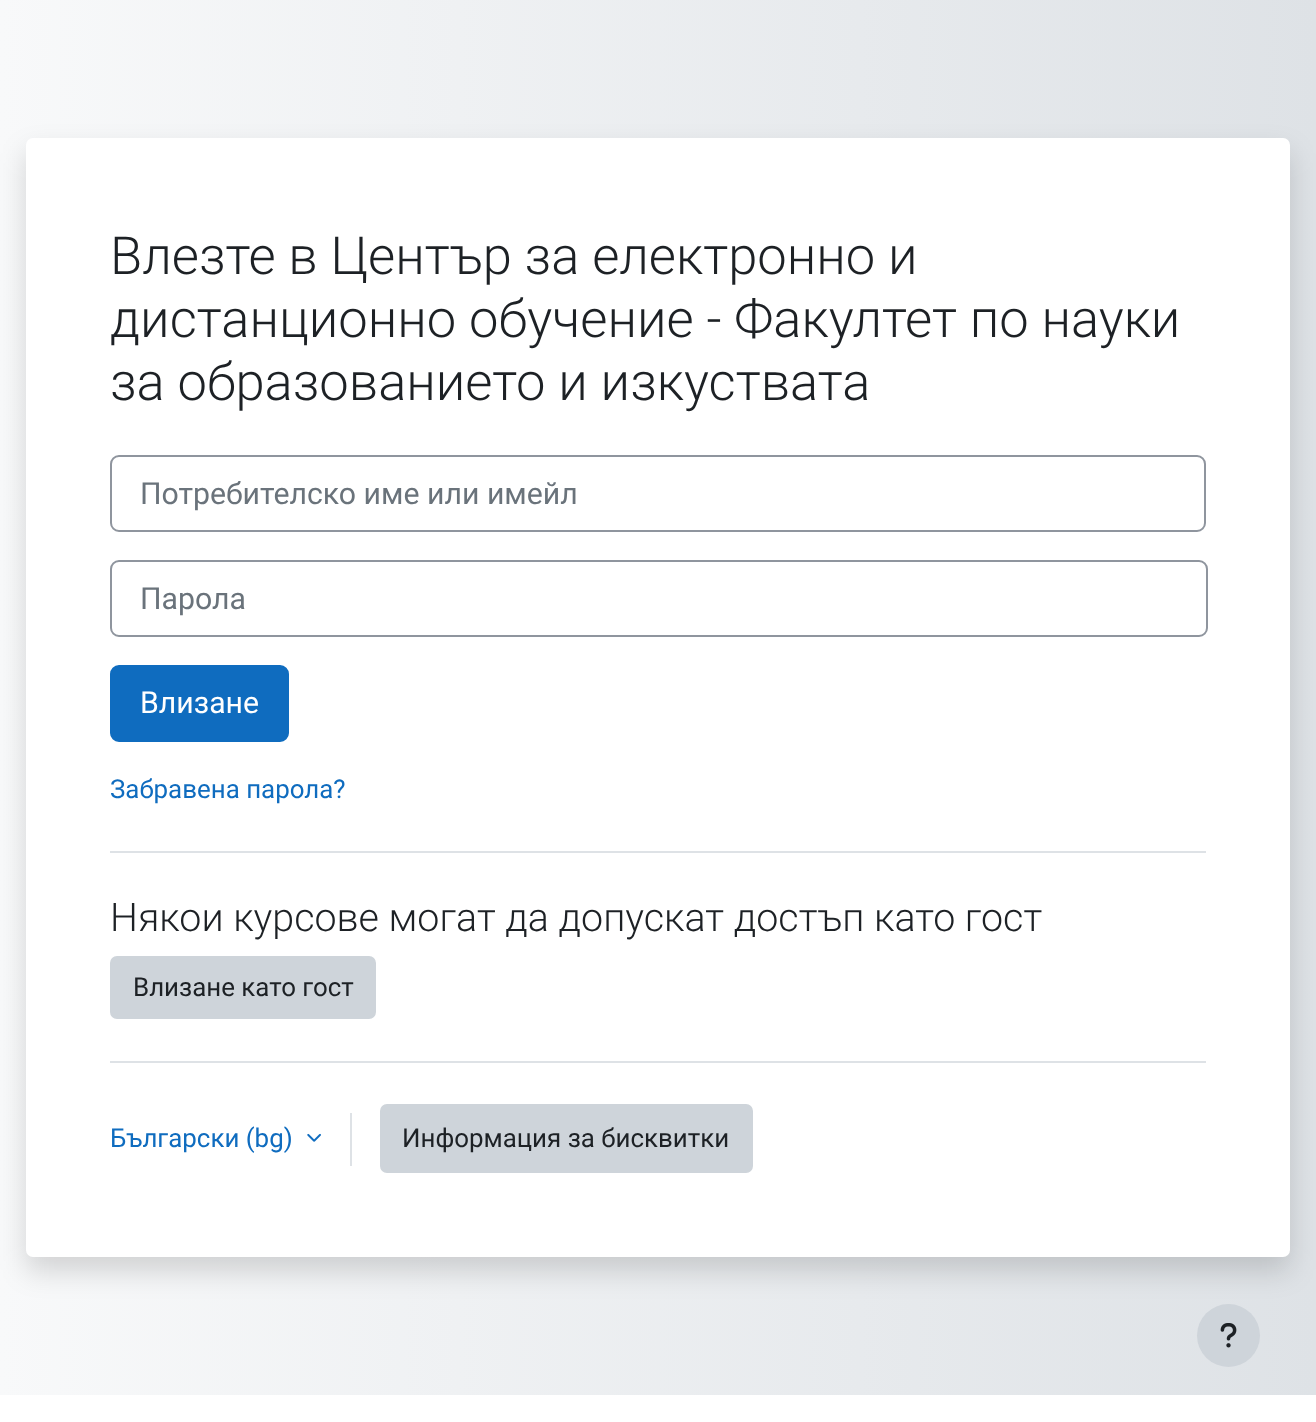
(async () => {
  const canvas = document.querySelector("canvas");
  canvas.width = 1316;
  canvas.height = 1422;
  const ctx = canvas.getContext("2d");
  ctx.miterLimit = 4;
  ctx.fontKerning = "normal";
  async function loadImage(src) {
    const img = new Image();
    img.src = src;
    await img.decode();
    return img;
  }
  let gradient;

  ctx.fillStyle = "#ffffff";
  ctx.fillRect(0, 0, 1316, 1422);
  gradient = ctx.createLinearGradient(0, 697, 1316, 697);
  gradient.addColorStop(0, "#f8f9fa");
  gradient.addColorStop(1, "#dee2e6");
  ctx.fillStyle = gradient;
  ctx.fillRect(0, 0, 1316, 1395);
  ctx.fillStyle = "rgba(0, 0, 0, 0.15)";
  ctx.filter = "blur(14px)";
  ctx.beginPath();
  ctx.roundRect(26, 152, 1264, 1119, 7);
  ctx.fill();
  ctx.filter = "none";
  ctx.fillStyle = "#ffffff";
  ctx.beginPath();
  ctx.roundRect(26, 138, 1264, 1119, 7);
  ctx.fill();
  ctx.beginPath();
  ctx.roundRect(111, 456, 1094, 75, 8);
  ctx.strokeStyle = "#8f959e";
  ctx.lineWidth = 2;
  ctx.stroke();
  ctx.beginPath();
  ctx.roundRect(111, 561, 1096, 75, 8);
  ctx.stroke();
  ctx.fillStyle = "#0f6cbf";
  ctx.beginPath();
  ctx.roundRect(111, 666, 177, 75, 8);
  ctx.fill();
  ctx.strokeStyle = "#0f6cbf";
  ctx.stroke();
  ctx.fillStyle = "#dee2e6";
  ctx.fillRect(110, 851, 1096, 2);
  ctx.fillStyle = "#ced4da";
  ctx.beginPath();
  ctx.roundRect(111, 957, 264, 61, 6);
  ctx.fill();
  ctx.strokeStyle = "#ced4da";
  ctx.stroke();
  ctx.fillStyle = "#dee2e6";
  ctx.fillRect(110, 1061, 1096, 2);
  ctx.drawImage(await loadImage("img/1.png"), 307, 1133, 14, 9);
  ctx.fillRect(350, 1113, 2, 53);
  ctx.fillStyle = "#ced4da";
  ctx.beginPath();
  ctx.roundRect(381, 1105, 371, 67, 6);
  ctx.fill();
  ctx.stroke();
  ctx.beginPath();
  ctx.arc(1228.5, 1335.5, 31.5, 0, Math.PI * 2);
  ctx.fill();
  ctx.drawImage(await loadImage("img/2.png"), 1220, 1323, 17, 25);
  ctx.font = "300 52.5px Roboto";
  ctx.fillStyle = "#1d2125";
  for (const [text, x, y] of [
    ["Влезте в Център за електронно и", 110, 274],
    ["дистанционно обучение - Факултет по науки", 110, 337],
    ["за образованието и изкуствата", 110, 400],
  ]) {
    ctx.fillText(text, x, y);
  }
  ctx.font = "30.25px Roboto";
  ctx.fillStyle = "#6a737b";
  ctx.fillText("Потребителско име или имейл", 140, 504);
  ctx.fillText("Парола", 140, 609);
  ctx.fillStyle = "#ffffff";
  ctx.fillText("Влизане", 140, 713);
  ctx.font = "25.9px Roboto";
  ctx.fillStyle = "#0f6cbf";
  ctx.fillText("Забравена парола?", 110, 798);
  ctx.font = "300 39.4px Roboto";
  ctx.fillStyle = "#1d2125";
  ctx.fillText("Някои курсове могат да допускат достъп като гост", 110, 931);
  ctx.font = "25.9px Roboto";
  ctx.fillText("Влизане като гост", 133, 996);
  ctx.fillStyle = "#0f6cbf";
  ctx.fillText("Български (bg)", 110, 1147);
  ctx.fillStyle = "#1d2125";
  ctx.fillText("Информация за бисквитки", 402, 1147);
})();
